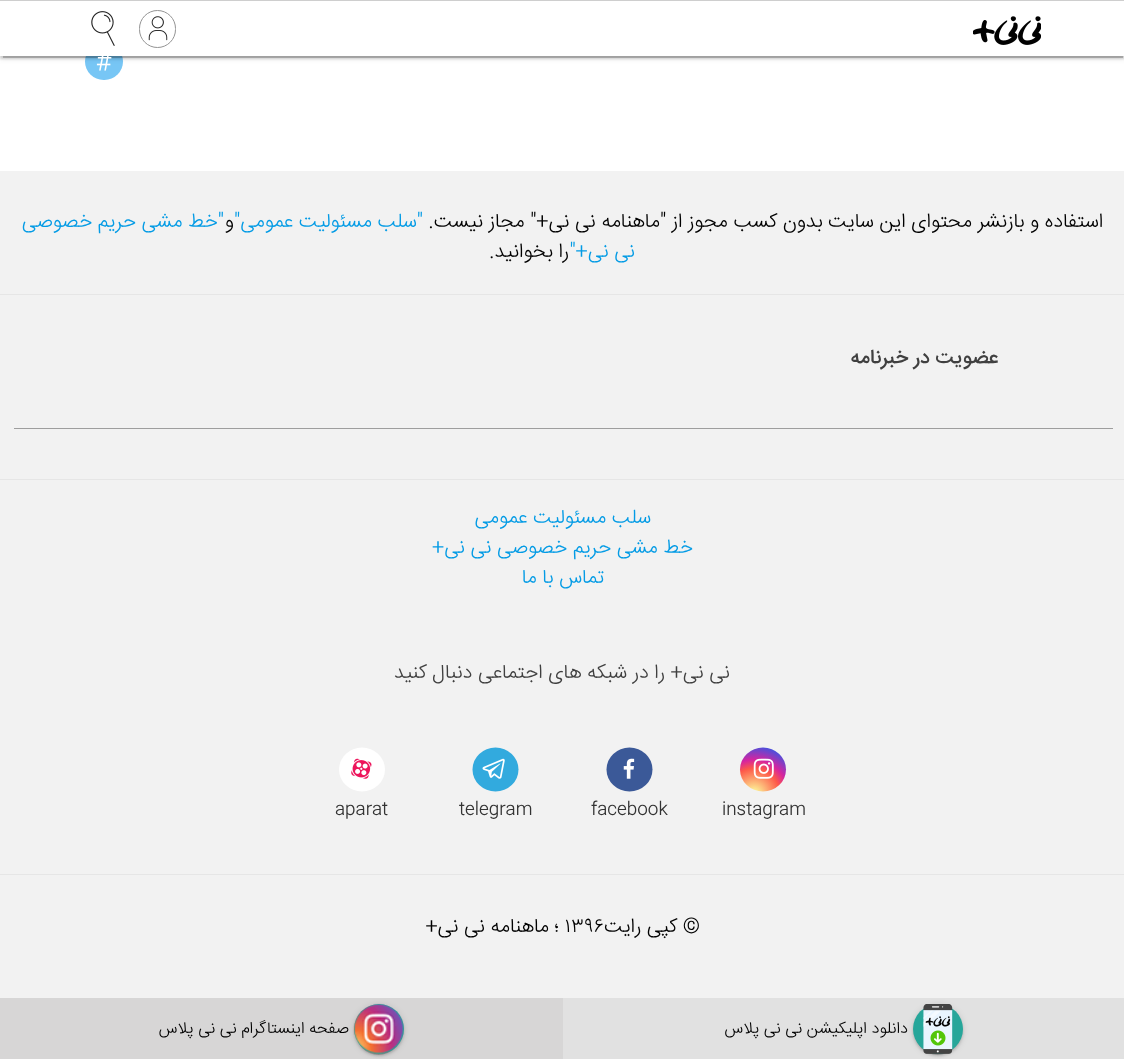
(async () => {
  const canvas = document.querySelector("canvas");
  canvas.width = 1124;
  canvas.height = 1059;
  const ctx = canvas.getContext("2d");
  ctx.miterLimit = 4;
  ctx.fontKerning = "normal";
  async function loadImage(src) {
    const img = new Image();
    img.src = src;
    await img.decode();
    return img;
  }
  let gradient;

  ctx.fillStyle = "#ffffff";
  ctx.fillRect(0, 0, 1124, 1059);
  ctx.fillStyle = "#77c6f5";
  ctx.beginPath();
  ctx.roundRect(85, 43, 38, 37, 18.5);
  ctx.fill();
  ctx.fillStyle = "rgba(0, 0, 0, 0.2)";
  ctx.filter = "blur(0.5px)";
  ctx.beginPath();
  ctx.rect(3, 6, 1120, 52);
  ctx.fill();
  ctx.filter = "none";
  ctx.fillStyle = "rgba(0, 0, 0, 0.12)";
  ctx.filter = "blur(3px)";
  ctx.beginPath();
  ctx.rect(0, 1, 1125, 57);
  ctx.fill();
  ctx.filter = "none";
  ctx.fillStyle = "rgba(0, 0, 0, 0.14)";
  ctx.filter = "blur(1px)";
  ctx.beginPath();
  ctx.rect(0, 3, 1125, 56);
  ctx.fill();
  ctx.filter = "none";
  ctx.fillStyle = "#ffffff";
  ctx.fillRect(0, 1, 1124, 55);
  ctx.fillStyle = "#cecece";
  ctx.fillRect(0, 0, 1124, 1);
  ctx.drawImage(await loadImage("img/1.png"), 973, 16, 68, 29);
  ctx.beginPath();
  ctx.roundRect(139.5, 10.5, 36, 37, 18);
  ctx.strokeStyle = "#949494";
  ctx.stroke();
  ctx.drawImage(await loadImage("img/2.png"), 148, 16, 20, 25);
  ctx.drawImage(await loadImage("img/3.png"), 91, 11, 24, 35);
  for (const [x, y, w, h, color] of [
    [0, 171, 1124, 827, "#f2f2f2"],
    [0, 294, 1124, 1, "#e6e6e6"],
    [0, 479, 1124, 1, "#e6e6e6"],
    [14, 428, 1099, 1, "#9e9e9e"],
    [0, 874, 1124, 1, "#e6e6e6"],
  ]) {
    ctx.fillStyle = color;
    ctx.fillRect(x, y, w, h);
  }
  gradient = ctx.createRadialGradient(754, 794, 0, 754, 794, 57);
  gradient.addColorStop(0, "#fdf497");
  gradient.addColorStop(0.05, "#fdf497");
  gradient.addColorStop(0.45, "#fd5949");
  gradient.addColorStop(0.6, "#d6249f");
  gradient.addColorStop(0.9, "#285aeb");
  ctx.fillStyle = gradient;
  ctx.beginPath();
  ctx.ellipse(763, 769.5, 23, 22, 0, 0, Math.PI * 2);
  ctx.fill();
  ctx.drawImage(await loadImage("img/4.png"), 753, 758, 21, 21);
  ctx.fillStyle = "#3b5998";
  ctx.beginPath();
  ctx.ellipse(629.5, 769.5, 23, 22, 0, 0, Math.PI * 2);
  ctx.fill();
  ctx.drawImage(await loadImage("img/5.png"), 623, 758, 12, 21);
  ctx.fillStyle = "#32aade";
  ctx.beginPath();
  ctx.ellipse(495.5, 769.5, 23, 22, 0, 0, Math.PI * 2);
  ctx.fill();
  ctx.drawImage(await loadImage("img/6.png"), 482, 758, 23, 21);
  ctx.fillStyle = "#ffffff";
  ctx.beginPath();
  ctx.ellipse(362, 769.5, 23, 22, 0, 0, Math.PI * 2);
  ctx.fill();
  ctx.drawImage(await loadImage("img/7.png"), 351, 758, 21, 21);
  ctx.fillStyle = "#e1e1e1";
  ctx.fillRect(563, 998, 561, 61);
  ctx.fillStyle = "rgba(0, 0, 0, 0.2)";
  ctx.filter = "blur(0.5px)";
  ctx.beginPath();
  ctx.roundRect(915, 1010, 45, 45, 22.5);
  ctx.fill();
  ctx.filter = "none";
  ctx.fillStyle = "rgba(0, 0, 0, 0.12)";
  ctx.filter = "blur(3px)";
  ctx.beginPath();
  ctx.roundRect(913, 1005, 50, 50, 25);
  ctx.fill();
  ctx.filter = "none";
  ctx.fillStyle = "rgba(0, 0, 0, 0.14)";
  ctx.filter = "blur(1px)";
  ctx.beginPath();
  ctx.roundRect(913, 1006, 50, 50, 25);
  ctx.fill();
  ctx.filter = "none";
  ctx.fillStyle = "#26a69a";
  ctx.beginPath();
  ctx.arc(938, 1029, 25, 0, Math.PI * 2);
  ctx.fill();
  ctx.drawImage(await loadImage("img/8.png"), 923, 1004, 30, 50);
  ctx.fillStyle = "#d7d6d6";
  ctx.fillRect(0, 998, 563, 61);
  ctx.fillStyle = "rgba(0, 0, 0, 0.2)";
  ctx.filter = "blur(0.5px)";
  ctx.beginPath();
  ctx.roundRect(356, 1010, 45, 45, 22.5);
  ctx.fill();
  ctx.filter = "none";
  ctx.fillStyle = "rgba(0, 0, 0, 0.12)";
  ctx.filter = "blur(3px)";
  ctx.beginPath();
  ctx.roundRect(354, 1005, 50, 50, 25);
  ctx.fill();
  ctx.filter = "none";
  ctx.fillStyle = "rgba(0, 0, 0, 0.14)";
  ctx.filter = "blur(1px)";
  ctx.beginPath();
  ctx.roundRect(354, 1006, 50, 50, 25);
  ctx.fill();
  ctx.filter = "none";
  ctx.fillStyle = "#26a69a";
  ctx.beginPath();
  ctx.arc(379, 1029, 25, 0, Math.PI * 2);
  ctx.fill();
  ctx.drawImage(await loadImage("img/9.png"), 353, 1003, 51, 51);
  ctx.font = "300 24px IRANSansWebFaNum";
  ctx.fillStyle = "#ffffff";
  ctx.fillText("#", 96, 69);
  ctx.direction = "rtl";
  ctx.font = "300 20px IRANSansWebFaNum";
  ctx.fillStyle = "#000000";
  ctx.fillText("استفاده و بازنشر محتوای این سایت بدون کسب مجوز از \"ماهنامه نی نی+\" مجاز نیست.", 1103, 227);
  ctx.fillStyle = "#039be5";
  ctx.fillText("\"سلب مسئولیت عمومی\"", 423, 227);
  ctx.fillStyle = "#000000";
  ctx.fillText("و", 234, 227);
  ctx.fillStyle = "#039be5";
  ctx.fillText("\"خط مشی حریم خصوصی", 224, 227);
  ctx.fillText("نی نی+\"", 635, 257);
  ctx.fillStyle = "#000000";
  ctx.fillText("را بخوانید.", 569, 257);
  ctx.font = "500 20px IRANSansWebFaNum";
  ctx.fillStyle = "#404040";
  ctx.fillText("عضویت در خبرنامه", 998, 363);
  ctx.font = "300 20px IRANSansWebFaNum";
  ctx.fillStyle = "#039be5";
  for (const [text, x, y] of [
    ["سلب مسئولیت عمومی", 651, 523],
    ["خط مشی حریم خصوصی نی نی+", 693, 553],
    ["تماس با ما", 604, 583],
  ]) {
    ctx.fillText(text, x, y);
  }
  ctx.fillStyle = "#404040";
  ctx.fillText("نی نی+ را در شبکه های اجتماعی دنبال کنید", 730, 678);
  ctx.direction = "ltr";
  ctx.font = "300 17.5px IRANSansWebFaNum";
  ctx.fillStyle = "#333333";
  for (const [text, x, y] of [
    ["instagram", 722, 814],
    ["facebook", 591, 814],
    ["telegram", 459, 814],
    ["aparat", 335, 814],
  ]) {
    ctx.fillText(text, x, y);
  }
  ctx.direction = "rtl";
  ctx.font = "300 20px IRANSansWebFaNum";
  ctx.fillStyle = "#000000";
  ctx.fillText("© کپی رایت", 700, 932);
  ctx.direction = "ltr";
  ctx.fillText("۱۳۹۶", 565, 932);
  ctx.direction = "rtl";
  ctx.fillText("؛", 559, 932);
  ctx.fillText("ماهنامه نی نی+", 549, 932);
  ctx.font = "300 16.25px IRANSansWebFaNum";
  ctx.fillText("دانلود اپلیکیشن نی نی پلاس", 908, 1033);
  ctx.fillText("صفحه اینستاگرام نی نی پلاس", 349, 1033);
})();
